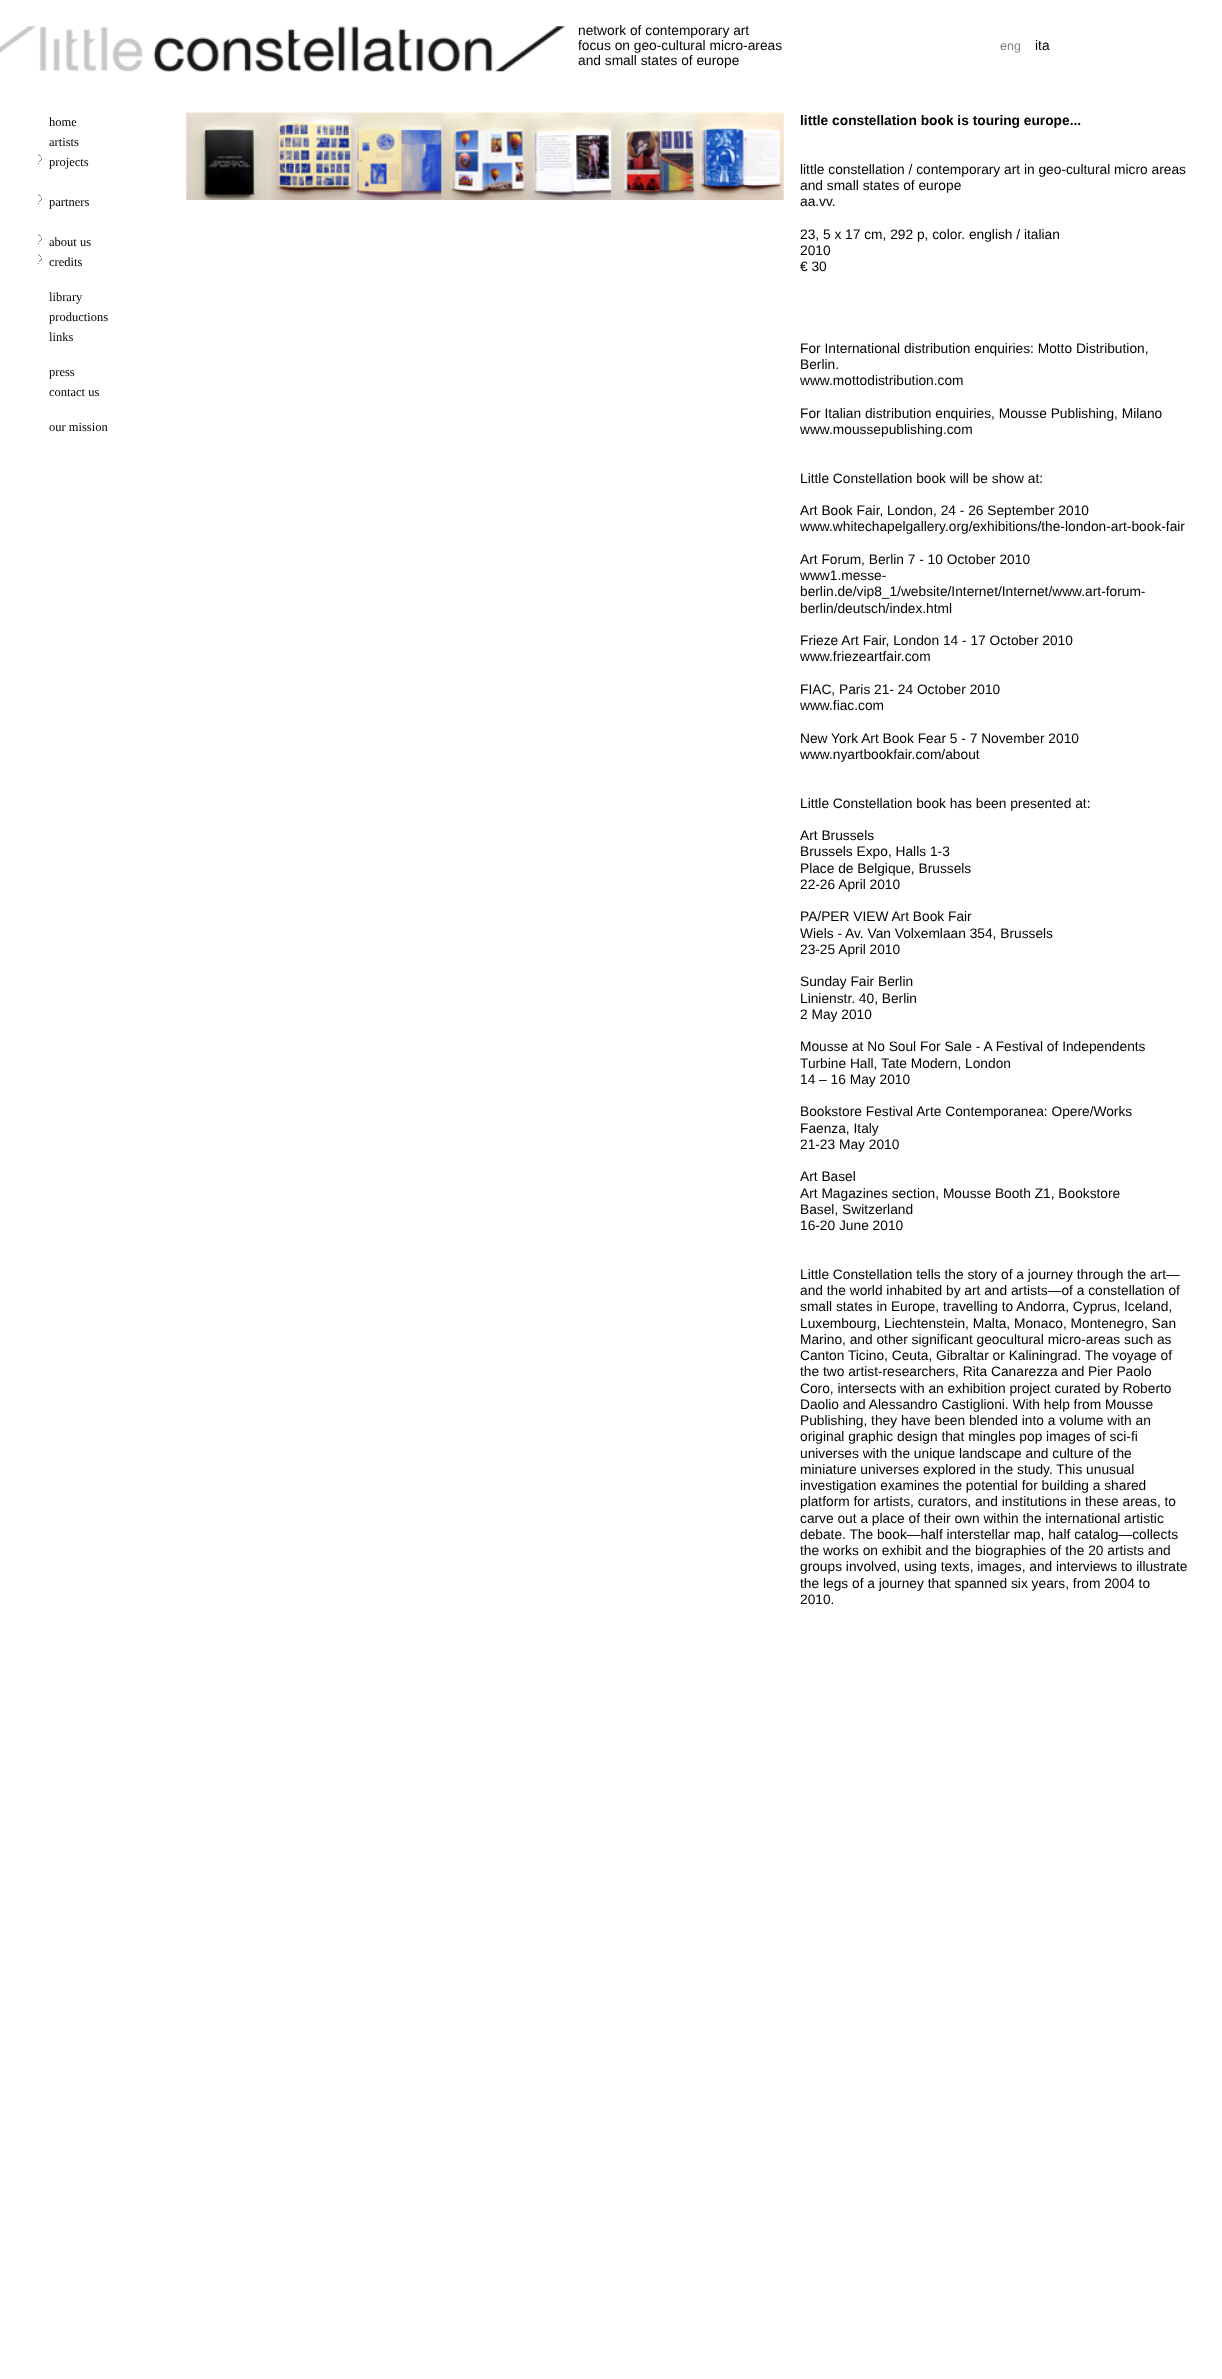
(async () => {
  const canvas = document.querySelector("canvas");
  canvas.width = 1222;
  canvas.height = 2379;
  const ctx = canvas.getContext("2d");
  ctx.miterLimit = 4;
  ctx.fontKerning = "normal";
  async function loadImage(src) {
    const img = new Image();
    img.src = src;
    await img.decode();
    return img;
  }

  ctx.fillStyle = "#ffffff";
  ctx.fillRect(0, 0, 1222, 2379);
  ctx.drawImage(await loadImage("img/1.png"), 0, 26, 565, 46);
  for (const [x, y, w, h, color] of [
    [38, 154, 1, 1, "#797979"],
    [38, 163, 1, 1, "#797979"],
    [39, 155, 1, 1, "#797979"],
    [39, 161, 1, 1, "#797979"],
    [40, 156, 1, 1, "#797979"],
    [40, 160, 1, 1, "#797979"],
    [41, 158, 1, 2, "#797979"],
    [38, 194, 1, 1, "#797979"],
    [38, 203, 1, 1, "#797979"],
    [39, 195, 1, 1, "#797979"],
    [39, 201, 1, 1, "#797979"],
    [40, 196, 1, 1, "#797979"],
    [40, 200, 1, 1, "#797979"],
    [41, 198, 1, 2, "#797979"],
    [38, 234, 1, 1, "#797979"],
    [38, 243, 1, 1, "#797979"],
    [39, 235, 1, 1, "#797979"],
    [39, 241, 1, 1, "#797979"],
    [40, 236, 1, 1, "#797979"],
    [40, 240, 1, 1, "#797979"],
    [41, 238, 1, 2, "#797979"],
    [38, 254, 1, 1, "#797979"],
    [38, 263, 1, 1, "#797979"],
    [39, 255, 1, 1, "#797979"],
    [39, 261, 1, 1, "#797979"],
    [40, 256, 1, 1, "#797979"],
    [40, 260, 1, 1, "#797979"],
    [41, 258, 1, 2, "#797979"],
  ]) {
    ctx.fillStyle = color;
    ctx.fillRect(x, y, w, h);
  }
  ctx.drawImage(await loadImage("img/2.png"), 186, 112, 88, 88);
  ctx.drawImage(await loadImage("img/3.png"), 271, 112, 88, 88);
  ctx.drawImage(await loadImage("img/4.png"), 356, 112, 88, 88);
  ctx.drawImage(await loadImage("img/5.png"), 441, 112, 88, 88);
  ctx.drawImage(await loadImage("img/6.png"), 526, 112, 88, 88);
  ctx.drawImage(await loadImage("img/7.png"), 611, 112, 88, 88);
  ctx.drawImage(await loadImage("img/8.png"), 696, 112, 88, 88);
  ctx.font = "13.75px Liberation Sans";
  ctx.fillStyle = "#000000";
  for (const [text, x, y] of [
    ["network of contemporary art", 578, 35],
    ["focus on geo-cultural micro-areas", 578, 50],
    ["and small states of europe", 578, 65],
  ]) {
    ctx.fillText(text, x, y);
  }
  ctx.font = "12.5px Liberation Sans";
  ctx.fillStyle = "#808080";
  ctx.fillText("eng", 1000, 50);
  ctx.font = "13.75px Liberation Sans";
  ctx.fillStyle = "#000000";
  ctx.fillText("ita", 1035, 50);
  ctx.font = "12.5px Liberation Serif";
  for (const [text, x, y] of [
    ["home", 49, 126],
    ["artists", 49, 146],
    ["projects", 49, 166],
    ["partners", 49, 206],
    ["about us", 49, 246],
    ["credits", 49, 266],
    ["library", 49, 301],
    ["productions", 49, 321],
    ["links", 49, 341],
    ["press", 49, 376],
    ["contact us", 49, 396],
    ["our mission", 49, 431],
  ]) {
    ctx.fillText(text, x, y);
  }
  ctx.font = "bold 13.75px Liberation Sans";
  ctx.fillText("little constellation book is touring europe...", 800, 125);
  ctx.font = "13.75px Liberation Sans";
  for (const [text, x, y] of [
    ["little constellation / contemporary art in geo-cultural micro areas", 800, 174],
    ["and small states of europe", 800, 190],
    ["aa.vv.", 800, 206],
    ["23, 5 x 17 cm, 292 p, color. english / italian", 800, 239],
    ["2010", 800, 255],
    ["€ 30", 800, 271],
    ["For International distribution enquiries: Motto Distribution,", 800, 353],
    ["Berlin.", 800, 369],
    ["www.mottodistribution.com", 800, 385],
    ["For Italian distribution enquiries, Mousse Publishing, Milano", 800, 418],
    ["www.moussepublishing.com", 800, 434],
    ["Little Constellation book will be show at:", 800, 483],
    ["Art Book Fair, London, 24 - 26 September 2010", 800, 515],
    ["www.whitechapelgallery.org/exhibitions/the-london-art-book-fair", 800, 531],
    ["Art Forum, Berlin 7 - 10 October 2010", 800, 564],
    ["www1.messe-", 800, 580],
    ["berlin.de/vip8_1/website/Internet/Internet/www.art-forum-", 800, 596],
    ["berlin/deutsch/index.html", 800, 613],
    ["Frieze Art Fair, London 14 - 17 October 2010", 800, 645],
    ["www.friezeartfair.com", 800, 661],
    ["FIAC, Paris 21- 24 October 2010", 800, 694],
    ["www.fiac.com", 800, 710],
    ["New York Art Book Fear 5 - 7 November 2010", 800, 743],
    ["www.nyartbookfair.com/about", 800, 759],
    ["Little Constellation book has been presented at:", 800, 808],
    ["Art Brussels", 800, 840],
    ["Brussels Expo, Halls 1-3", 800, 856],
    ["Place de Belgique, Brussels", 800, 873],
    ["22-26 April 2010", 800, 889],
    ["PA/PER VIEW Art Book Fair", 800, 921],
    ["Wiels - Av. Van Volxemlaan 354, Brussels", 800, 938],
    ["23-25 April 2010", 800, 954],
    ["Sunday Fair Berlin", 800, 986],
    ["Linienstr. 40, Berlin", 800, 1003],
    ["2 May 2010", 800, 1019],
    ["Mousse at No Soul For Sale - A Festival of Independents", 800, 1051],
    ["Turbine Hall, Tate Modern, London", 800, 1068],
    ["14 – 16 May 2010", 800, 1084],
    ["Bookstore Festival Arte Contemporanea: Opere/Works", 800, 1116],
    ["Faenza, Italy", 800, 1133],
    ["21-23 May 2010", 800, 1149],
    ["Art Basel", 800, 1181],
    ["Art Magazines section, Mousse Booth Z1, Bookstore", 800, 1198],
    ["Basel, Switzerland", 800, 1214],
    ["16-20 June 2010", 800, 1230],
    ["Little Constellation tells the story of a journey through the art—", 800, 1279],
    ["and the world inhabited by art and artists—of a constellation of", 800, 1295],
    ["small states in Europe, travelling to Andorra, Cyprus, Iceland,", 800, 1311],
    ["Luxembourg, Liechtenstein, Malta, Monaco, Montenegro, San", 800, 1328],
    ["Marino, and other significant geocultural micro-areas such as", 800, 1344],
    ["Canton Ticino, Ceuta, Gibraltar or Kaliningrad. The voyage of", 800, 1360],
    ["the two artist-researchers, Rita Canarezza and Pier Paolo", 800, 1376],
    ["Coro, intersects with an exhibition project curated by Roberto", 800, 1393],
    ["Daolio and Alessandro Castiglioni. With help from Mousse", 800, 1409],
    ["Publishing, they have been blended into a volume with an", 800, 1425],
    ["original graphic design that mingles pop images of sci-fi", 800, 1441],
    ["universes with the unique landscape and culture of the", 800, 1458],
    ["miniature universes explored in the study. This unusual", 800, 1474],
    ["investigation examines the potential for building a shared", 800, 1490],
    ["platform for artists, curators, and institutions in these areas, to", 800, 1506],
    ["carve out a place of their own within the international artistic", 800, 1523],
    ["debate. The book—half interstellar map, half catalog—collects", 800, 1539],
    ["the works on exhibit and the biographies of the 20 artists and", 800, 1555],
    ["groups involved, using texts, images, and interviews to illustrate", 800, 1571],
    ["the legs of a journey that spanned six years, from 2004 to", 800, 1588],
    ["2010.", 800, 1604],
  ]) {
    ctx.fillText(text, x, y);
  }
})();
